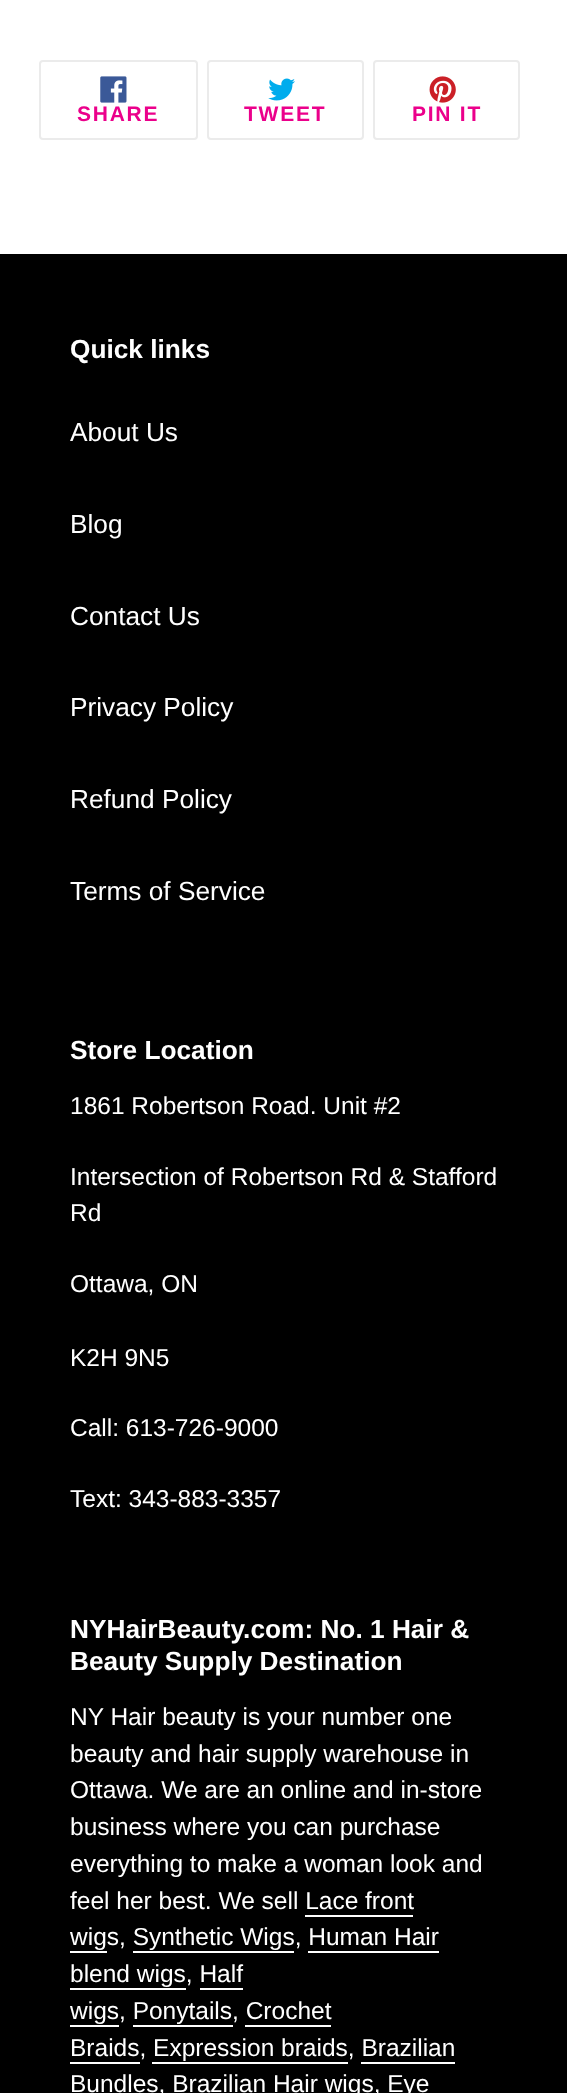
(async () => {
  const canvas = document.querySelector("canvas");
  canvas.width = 567;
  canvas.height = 2093;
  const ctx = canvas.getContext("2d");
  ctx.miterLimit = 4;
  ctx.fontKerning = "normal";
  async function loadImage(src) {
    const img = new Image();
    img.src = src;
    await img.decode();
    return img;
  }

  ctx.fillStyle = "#ffffff";
  ctx.fillRect(0, 0, 567, 2093);
  ctx.beginPath();
  ctx.roundRect(40, 61, 157, 78, 3);
  ctx.strokeStyle = "#ebebeb";
  ctx.lineWidth = 2;
  ctx.stroke();
  ctx.drawImage(await loadImage("img/1.png"), 100, 76, 27, 27);
  ctx.beginPath();
  ctx.roundRect(208, 61, 155, 78, 3);
  ctx.stroke();
  ctx.drawImage(await loadImage("img/2.png"), 268, 78, 27, 23);
  ctx.beginPath();
  ctx.roundRect(374, 61, 145, 78, 3);
  ctx.stroke();
  ctx.drawImage(await loadImage("img/3.png"), 429, 76, 27, 27);
  for (const [x, y, w, h, color] of [
    [0, 254, 567, 1839, "#000000"],
    [305, 1915, 108, 2, "#ffffff"],
    [70, 1951, 37, 2, "#ffffff"],
    [133, 1951, 161, 2, "#ffffff"],
    [308, 1951, 131, 2, "#ffffff"],
    [70, 1988, 116, 2, "#ffffff"],
    [200, 1988, 43, 2, "#ffffff"],
    [70, 2025, 49, 2, "#ffffff"],
    [133, 2025, 100, 2, "#ffffff"],
    [245, 2025, 86, 2, "#ffffff"],
    [70, 2062, 70, 2, "#ffffff"],
    [152, 2062, 196, 2, "#ffffff"],
    [361, 2062, 94, 2, "#ffffff"],
  ]) {
    ctx.fillStyle = color;
    ctx.fillRect(x, y, w, h);
  }
  ctx.letterSpacing = "1.75px";
  ctx.font = "bold 21px Liberation Sans";
  ctx.fillStyle = "#eb008b";
  for (const [text, x, y] of [
    ["SHARE", 77, 121],
    ["TWEET", 244, 121],
    ["PIN IT", 412, 121],
  ]) {
    ctx.fillText(text, x, y);
  }
  ctx.letterSpacing = "0px";
  ctx.font = "bold 26.25px Liberation Sans";
  ctx.fillStyle = "#ffffff";
  ctx.fillText("Quick links", 70, 358);
  ctx.font = "26.25px Liberation Sans";
  for (const [text, x, y] of [
    ["About Us", 70, 441],
    ["Blog", 70, 533],
    ["Contact Us", 70, 625],
    ["Privacy Policy", 70, 716],
    ["Refund Policy", 70, 808],
    ["Terms of Service", 70, 900],
  ]) {
    ctx.fillText(text, x, y);
  }
  ctx.font = "bold 26.25px Liberation Sans";
  ctx.fillText("Store Location", 70, 1059);
  ctx.font = "24.5px Liberation Sans";
  for (const [text, x, y] of [
    ["1861 Robertson Road. Unit #2", 70, 1114],
    ["Intersection of Robertson Rd & Stafford", 70, 1185],
    ["Rd", 70, 1221],
    ["Ottawa, ON", 70, 1292],
    ["K2H 9N5", 70, 1366],
    ["Call: 613-726-9000", 70, 1436],
    ["Text: 343-883-3357", 70, 1507],
  ]) {
    ctx.fillText(text, x, y);
  }
  ctx.font = "bold 26.25px Liberation Sans";
  ctx.fillText("NYHairBeauty.com: No. 1 Hair &", 70, 1638);
  ctx.fillText("Beauty Supply Destination", 70, 1670);
  ctx.font = "24.5px Liberation Sans";
  for (const [text, x, y] of [
    ["NY Hair beauty is your number one", 70, 1725],
    ["beauty and hair supply warehouse in", 70, 1762],
    ["Ottawa. We are an online and in-store", 70, 1798],
    ["business where you can purchase", 70, 1835],
    ["everything to make a woman look and", 70, 1872],
    ["feel her best. We sell Lace front", 70, 1909],
    ["wigs, Synthetic Wigs, Human Hair", 70, 1945],
    ["blend wigs, Half", 70, 1982],
    ["wigs, Ponytails, Crochet", 70, 2019],
    ["Braids, Expression braids, Brazilian", 70, 2056],
    ["Bundles, Brazilian Hair wigs, Eye", 70, 2092],
  ]) {
    ctx.fillText(text, x, y);
  }
})();
